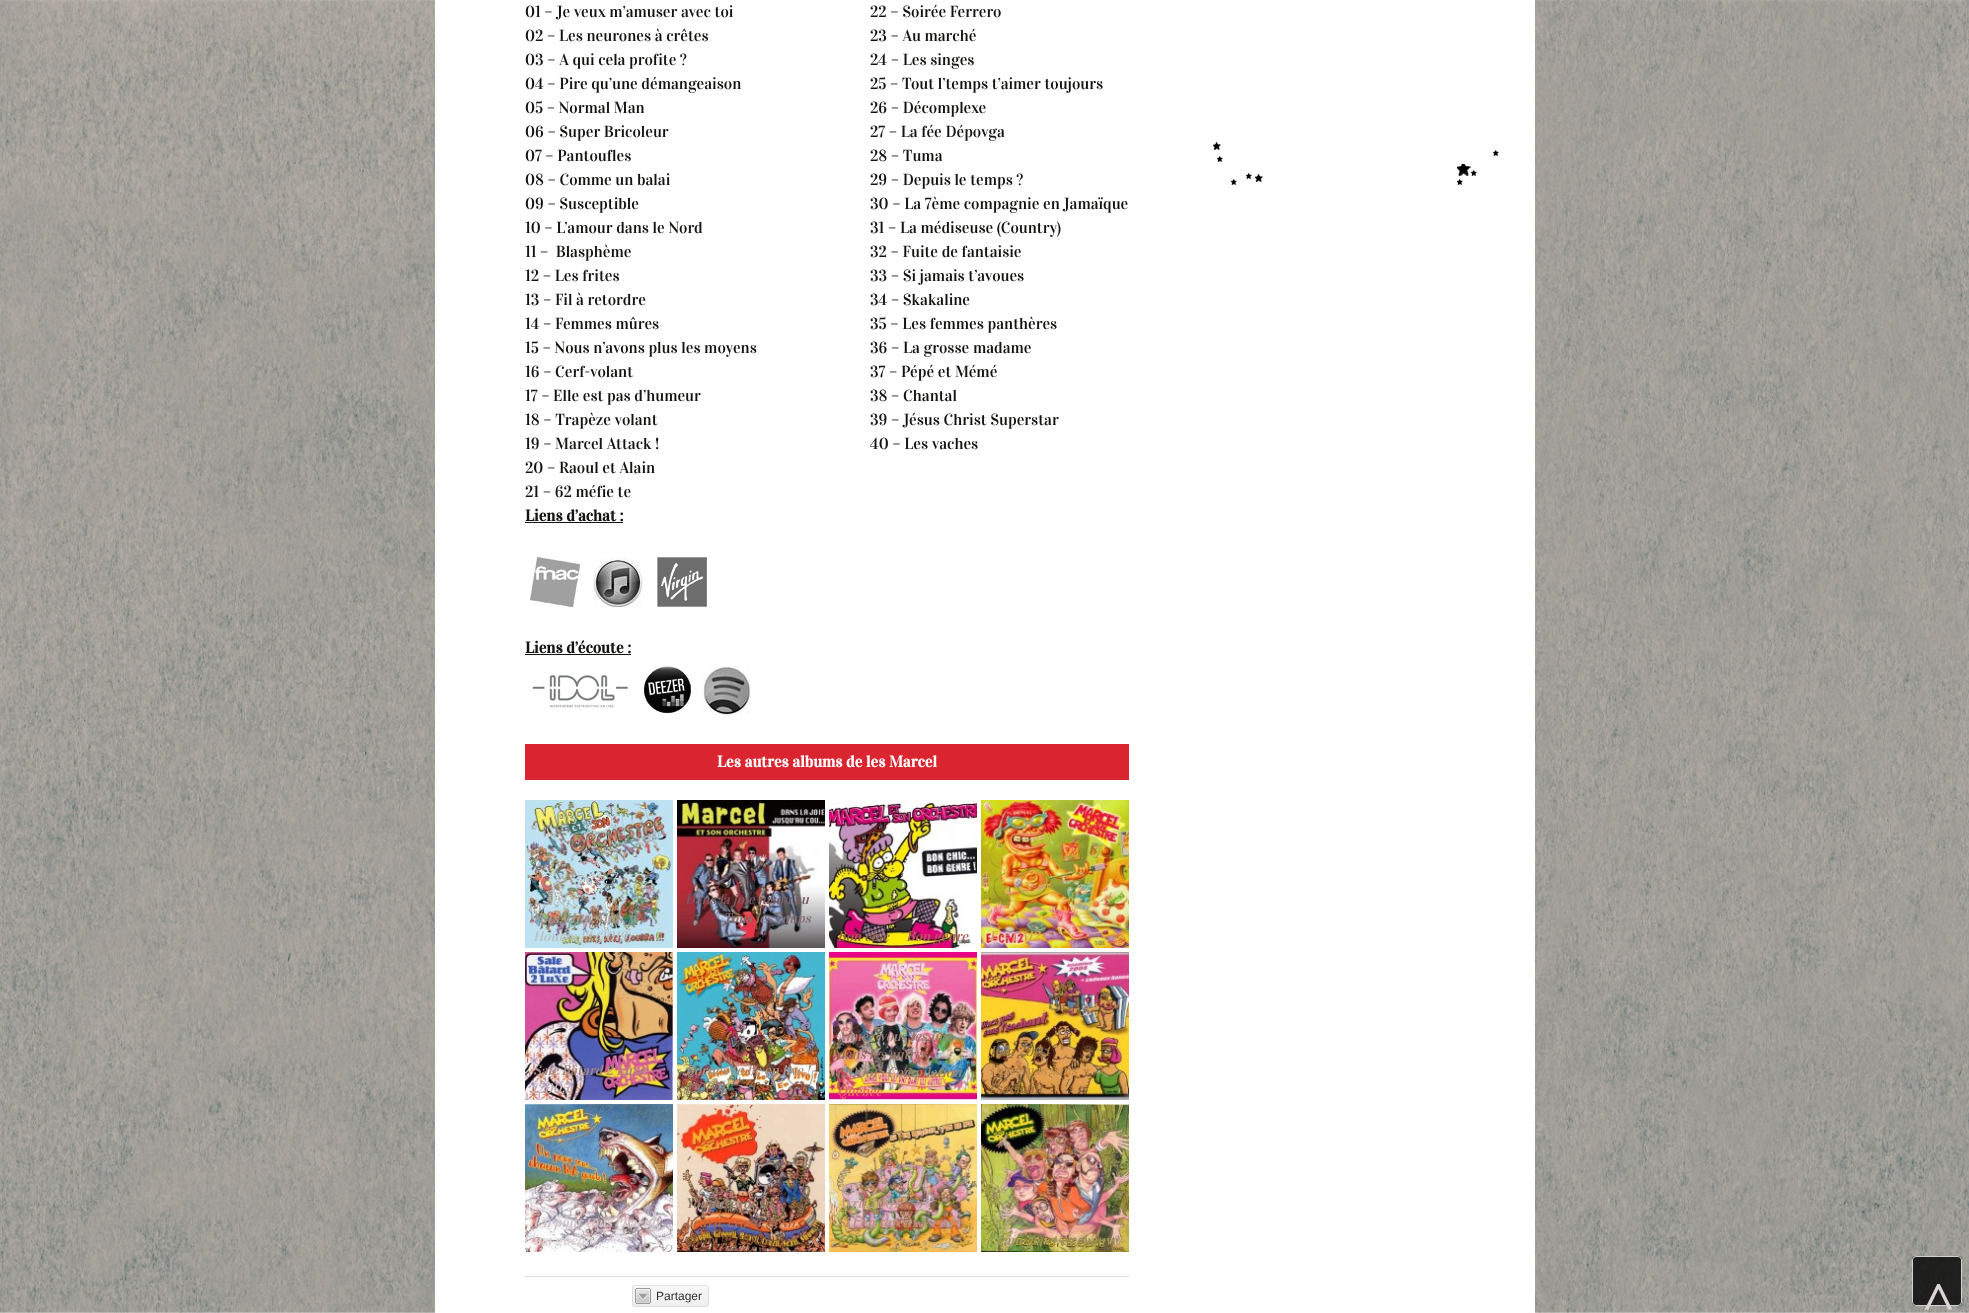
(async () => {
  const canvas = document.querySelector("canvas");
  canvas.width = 1969;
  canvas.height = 1313;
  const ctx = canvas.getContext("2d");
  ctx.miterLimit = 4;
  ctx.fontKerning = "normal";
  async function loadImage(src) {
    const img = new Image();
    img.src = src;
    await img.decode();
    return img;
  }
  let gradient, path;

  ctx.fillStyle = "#ffffff";
  ctx.fillRect(0, 0, 1969, 1313);
  ctx.drawImage(await loadImage("img/1.png"), 0, 0, 1969, 1313);
  ctx.fillRect(435, 0, 1100, 1313);
  ctx.fillStyle = "#141412";
  ctx.fillRect(525, 522, 98, 1);
  ctx.drawImage(await loadImage("img/2.png"), 530, 557, 50, 50);
  ctx.drawImage(await loadImage("img/3.png"), 593, 558, 50, 49);
  ctx.drawImage(await loadImage("img/4.png"), 657, 557, 50, 50);
  ctx.fillRect(525, 654, 106, 1);
  ctx.drawImage(await loadImage("img/5.png"), 532, 675, 96, 33);
  ctx.drawImage(await loadImage("img/6.png"), 642, 666, 50, 48);
  ctx.drawImage(await loadImage("img/7.png"), 702, 666, 48, 49);
  ctx.fillStyle = "#da242f";
  ctx.fillRect(525, 744, 604, 36);
  ctx.drawImage(await loadImage("img/8.png"), 525, 800, 148, 148);
  ctx.drawImage(await loadImage("img/9.png"), 677, 800, 148, 148);
  ctx.drawImage(await loadImage("img/10.png"), 829, 800, 148, 148);
  ctx.drawImage(await loadImage("img/11.png"), 981, 800, 148, 148);
  ctx.drawImage(await loadImage("img/12.png"), 525, 952, 148, 148);
  ctx.drawImage(await loadImage("img/13.png"), 677, 952, 148, 148);
  ctx.drawImage(await loadImage("img/14.png"), 829, 952, 148, 148);
  ctx.drawImage(await loadImage("img/15.png"), 981, 952, 148, 148);
  ctx.drawImage(await loadImage("img/16.png"), 525, 1104, 148, 148);
  ctx.drawImage(await loadImage("img/17.png"), 677, 1104, 148, 148);
  ctx.drawImage(await loadImage("img/18.png"), 829, 1104, 148, 148);
  ctx.drawImage(await loadImage("img/19.png"), 981, 1104, 148, 148);
  ctx.fillStyle = "#dedede";
  ctx.fillRect(525, 1276, 604, 1);
  ctx.save();
  ctx.beginPath();
  ctx.roundRect(632, 1285, 77, 22, 3);
  ctx.clip();
  gradient = ctx.createLinearGradient(671, 1286, 671, 1306);
  gradient.addColorStop(0, "#f7f7f7");
  gradient.addColorStop(1, "#efefef");
  ctx.fillStyle = gradient;
  ctx.fillRect(632, 1286, 77, 20);
  ctx.restore();
  ctx.fillStyle = "#ffffff";
  path = new Path2D("M635 1287H706C707 1287 708 1288 708 1289C708 1283 697 1286 694 1286H647C644 1286 633 1283 633 1289C633 1288 634 1287 635 1287Z");
  ctx.fill(path);
  ctx.beginPath();
  ctx.roundRect(632.5, 1285.5, 76, 21, 2.5);
  ctx.strokeStyle = "#dddddd";
  ctx.stroke();
  ctx.drawImage(await loadImage("img/20.png"), 635, 1288, 16, 16);
  ctx.drawImage(await loadImage("img/21.png"), 1213, 142, 286, 43);
  ctx.fillRect(1461, 162, 4, 2);
  ctx.fillStyle = "rgba(0, 0, 0, 0.8)";
  ctx.beginPath();
  ctx.roundRect(1912, 1256, 50, 50, 4);
  ctx.fill();
  ctx.beginPath();
  ctx.roundRect(1912.5, 1256.5, 49, 49, 3.5);
  ctx.strokeStyle = "rgba(255, 255, 255, 0.8)";
  ctx.stroke();
  ctx.font = "16px Vidaloka";
  ctx.fillStyle = "#141412";
  for (const [text, x, y] of [
    ["01 – Je veux m’amuser avec toi", 525, 17],
    ["02 – Les neurones à crêtes", 525, 41],
    ["03 – A qui cela profite ?", 525, 65],
    ["04 – Pire qu’une démangeaison", 525, 89],
    ["05 – Normal Man", 525, 113],
    ["06 – Super Bricoleur", 525, 137],
    ["07 – Pantoufles", 525, 161],
    ["08 – Comme un balai", 525, 185],
    ["09 – Susceptible", 525, 209],
    ["10 – L’amour dans le Nord", 525, 233],
    ["11 –  Blasphème", 525, 257],
    ["12 – Les frites", 525, 281],
    ["13 – Fil à retordre", 525, 305],
    ["14 – Femmes mûres", 525, 329],
    ["15 – Nous n’avons plus les moyens", 525, 353],
    ["16 – Cerf-volant", 525, 377],
    ["17 – Elle est pas d’humeur", 525, 401],
    ["18 – Trapèze volant", 525, 425],
    ["19 – Marcel Attack !", 525, 449],
    ["20 – Raoul et Alain", 525, 473],
    ["21 – 62 méfie te", 525, 497],
    ["22 – Soirée Ferrero", 870, 17],
    ["23 – Au marché", 870, 41],
    ["24 – Les singes", 870, 65],
    ["25 – Tout l’temps t’aimer toujours", 870, 89],
    ["26 – Décomplexe", 870, 113],
    ["27 – La fée Dépovga", 870, 137],
    ["28 – Tuma", 870, 161],
    ["29 – Depuis le temps ?", 870, 185],
    ["30 – La 7ème compagnie en Jamaïque", 870, 209],
    ["31 – La médiseuse (Country)", 870, 233],
    ["32 – Fuite de fantaisie", 870, 257],
    ["33 – Si jamais t’avoues", 870, 281],
    ["34 – Skakaline", 870, 305],
    ["35 – Les femmes panthères", 870, 329],
    ["36 – La grosse madame", 870, 353],
    ["37 – Pépé et Mémé", 870, 377],
    ["38 – Chantal", 870, 401],
    ["39 – Jésus Christ Superstar", 870, 425],
    ["40 – Les vaches", 870, 449],
  ]) {
    ctx.fillText(text, x, y);
  }
  ctx.font = "bold 16px Vidaloka";
  ctx.fillText("Liens d’achat :", 525, 521);
  ctx.fillText("Liens d’écoute :", 525, 653);
  ctx.fillStyle = "#ffffff";
  ctx.fillText("Les autres albums de les Marcel", 717, 767);
  ctx.font = "italic 14px Vidaloka";
  ctx.fillStyle = "#a09c95";
  ctx.fillText("Hits, Hits, Hits,", 533, 923);
  ctx.fillStyle = "#b6c3c6";
  ctx.fillText("Hourra !!! (2019)", 533, 941);
  ctx.fillStyle = "#775c64";
  ctx.fillText("Dans la joie jusqu’au", 685, 904);
  ctx.fillStyle = "#857078";
  ctx.fillText("Tous les coups", 723, 923);
  ctx.fillStyle = "#683440";
  ctx.fillText("!", 760, 941);
  ctx.fillStyle = "#936545";
  ctx.fillText("Bon chic", 837, 941);
  ctx.fillStyle = "#b06060";
  ctx.fillText("Bon genre", 906, 941);
  ctx.fillStyle = "#d79f60";
  ctx.fillText("E = CM2", 989, 941);
  ctx.fillStyle = "#a58784";
  ctx.fillText("Sale Bâtard 2 Luxe", 533, 1075);
  ctx.fillStyle = "#bfadb1";
  ctx.fillText("(2005)", 533, 1093);
  ctx.fillStyle = "#a89383";
  ctx.fillText("Bornes to be en live !", 685, 1075);
  ctx.fillStyle = "#927d6c";
  ctx.fillText("(2005)", 685, 1093);
  ctx.fillStyle = "#968077";
  ctx.fillText("Aimez-vous les uns", 837, 1041);
  ctx.fillStyle = "#997267";
  ctx.fillText("dans les autres", 837, 1059);
  ctx.fillStyle = "#998370";
  ctx.fillText("(2005) • Compilation", 837, 1077);
  ctx.fillStyle = "#e36c66";
  ctx.fillText("Québec", 837, 1096);
  ctx.fillStyle = "#97763e";
  ctx.fillText("Juin 2004", 989, 1056);
  ctx.fillStyle = "#c58e4a";
  ctx.fillText("Dizez pas sans", 989, 1075);
  ctx.fillStyle = "#a0723c";
  ctx.fillText("l’sachant", 989, 1093);
  ctx.fillStyle = "#d0c4c9";
  ctx.fillText("Un pour tous chacun", 533, 1227);
  ctx.fillStyle = "#ddd4d7";
  ctx.fillText("ma gueule", 533, 1245);
  ctx.fillStyle = "#927d6c";
  ctx.fillText("Youpii, groovii,", 685, 1208);
  ctx.fillStyle = "#b1684c";
  ctx.fillText("heavii, crazii, sexii,", 685, 1227);
  ctx.fillStyle = "#785131";
  ctx.fillText("show !!! (2002)", 685, 1245);
  ctx.fillStyle = "#bb9e82";
  ctx.fillText("Avril 2001", 837, 1208);
  ctx.fillStyle = "#bc9073";
  ctx.fillText("Si t en reveux y en re", 837, 1227);
  ctx.fillStyle = "#a1963d";
  ctx.fillText("n’a", 837, 1245);
  ctx.fillStyle = "#a19655";
  ctx.fillText("Crâne pas t’es chauve", 989, 1245);
  ctx.font = "12px Liberation Sans";
  ctx.fillStyle = "#313131";
  ctx.fillText("Partager", 656, 1300);
  ctx.font = "bold 55px Liberation Serif";
  ctx.fillStyle = "#ddd4d7";
  ctx.fillText("˄", 1923, 1315);
})();
